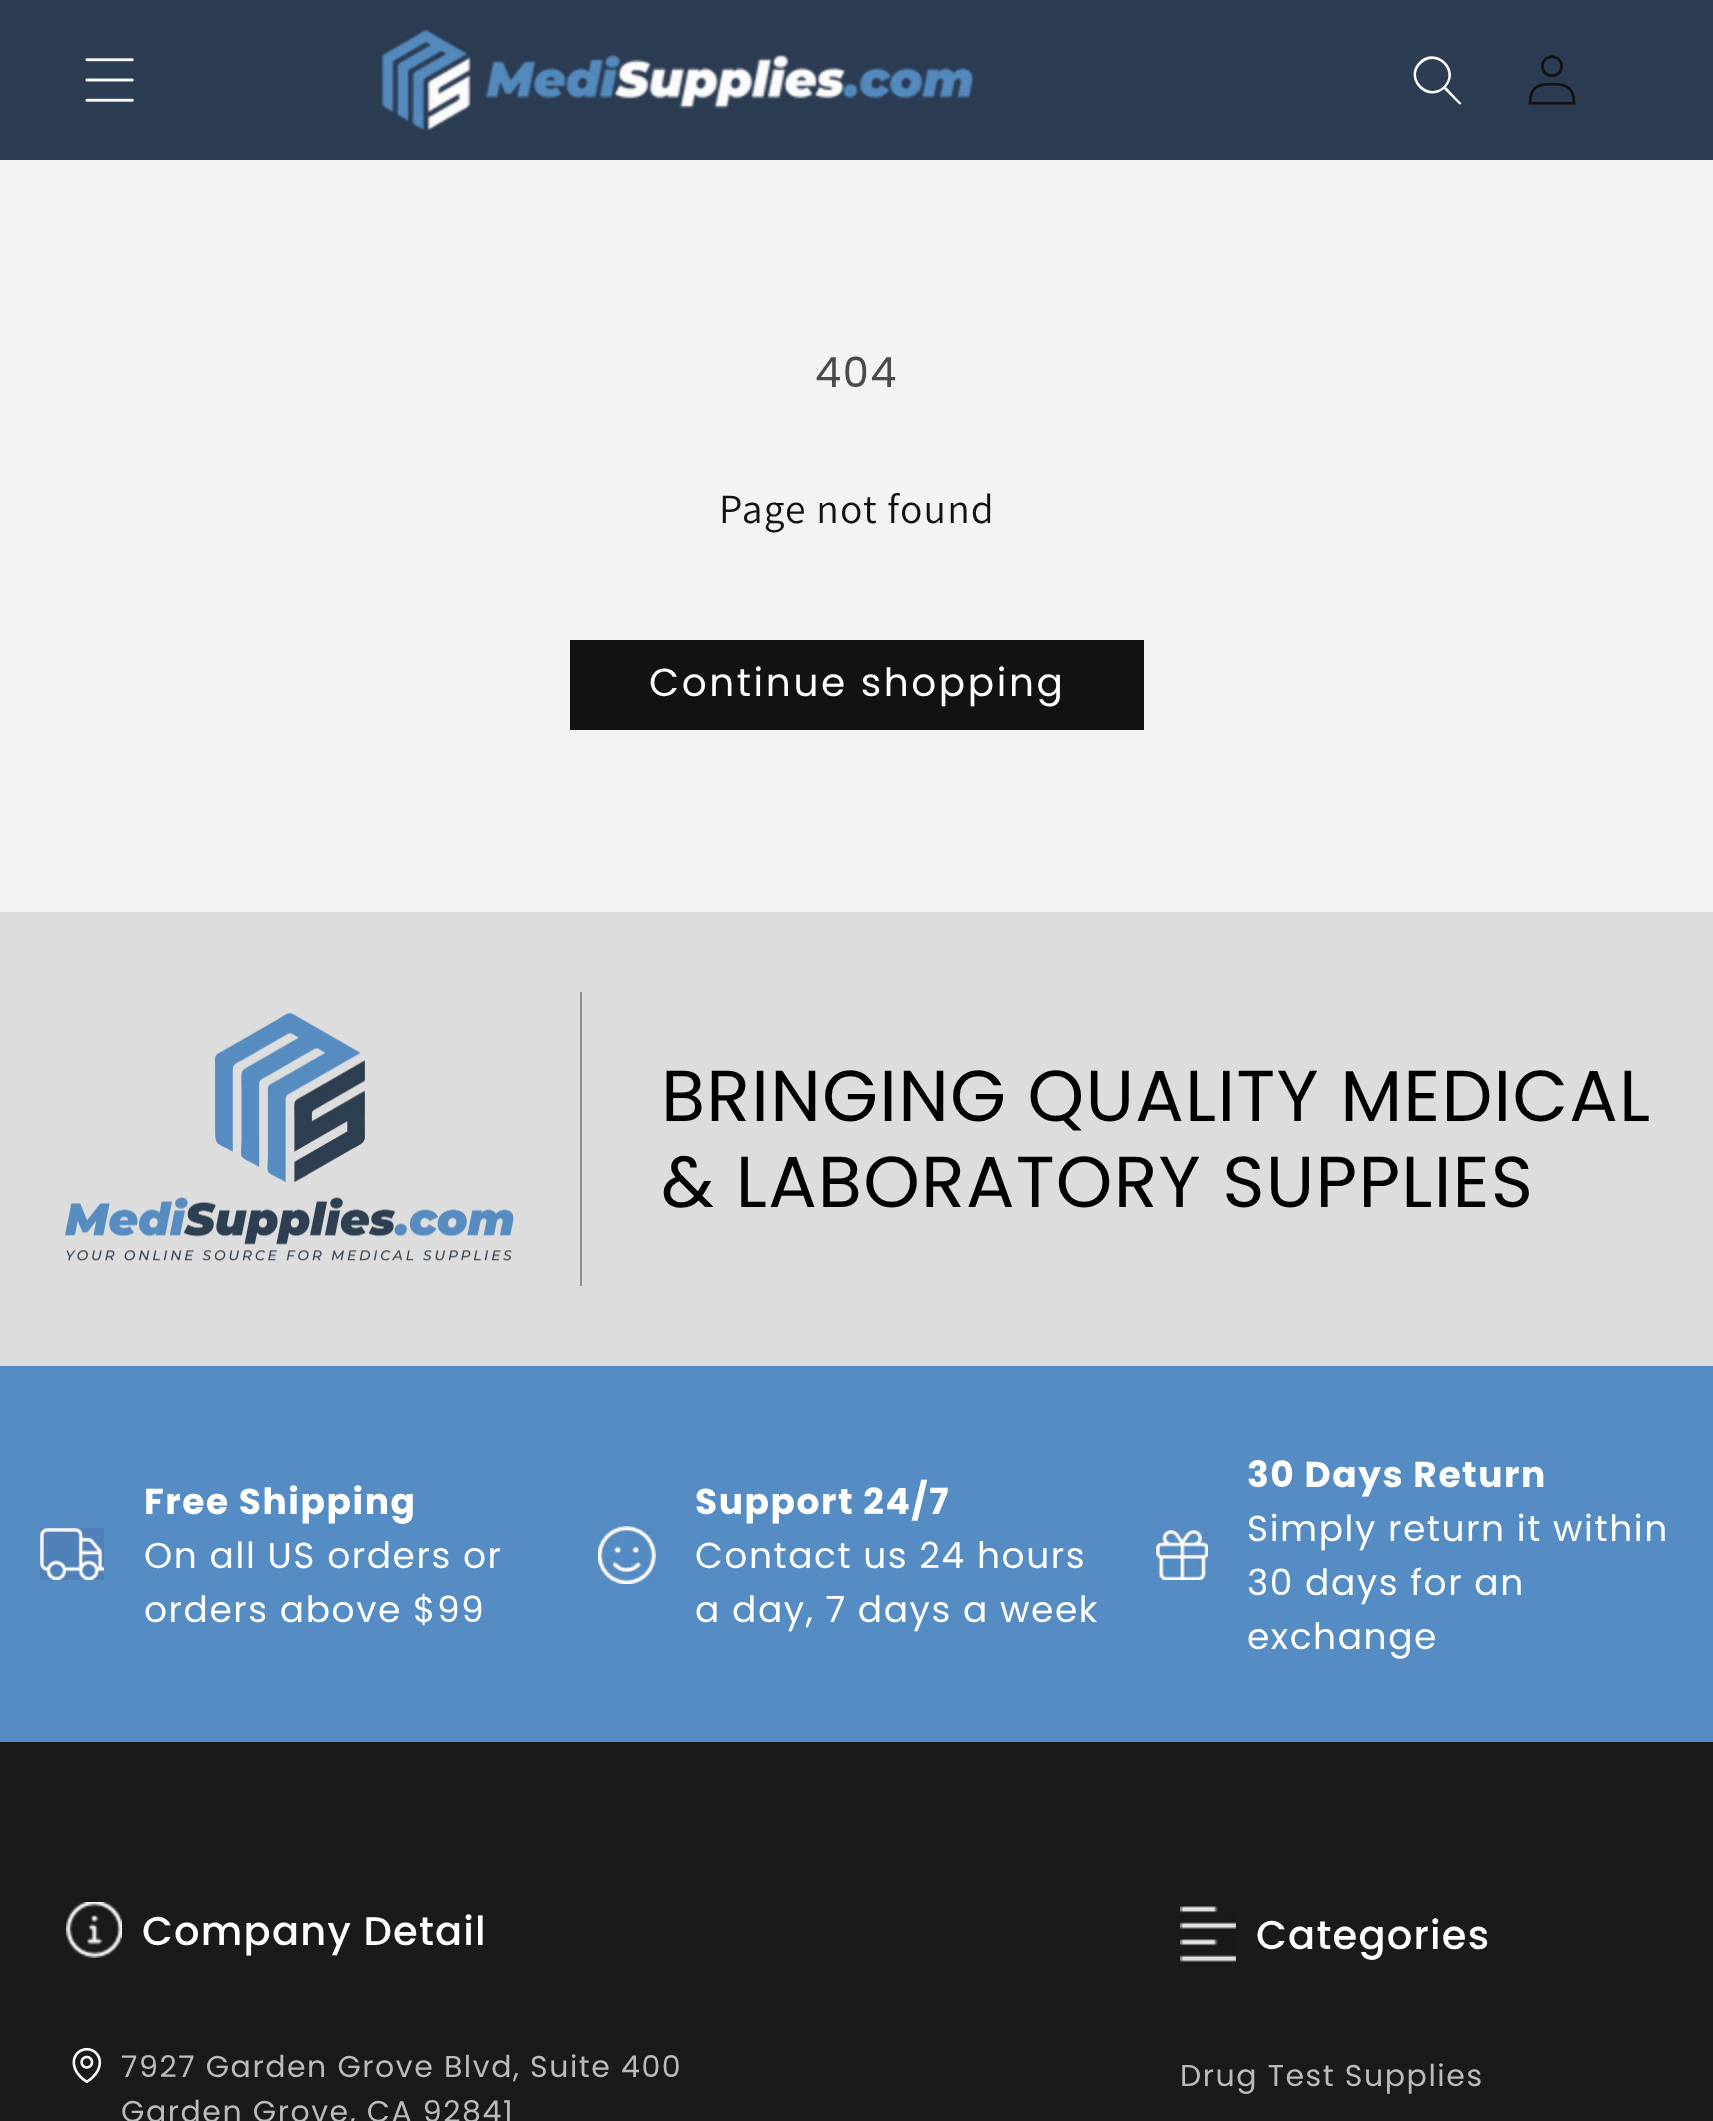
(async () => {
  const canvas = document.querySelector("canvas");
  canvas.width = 1713;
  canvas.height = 2121;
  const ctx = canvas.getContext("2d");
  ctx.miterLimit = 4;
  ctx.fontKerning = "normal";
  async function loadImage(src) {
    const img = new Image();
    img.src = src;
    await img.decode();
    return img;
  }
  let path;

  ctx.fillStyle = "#f3f3f3";
  ctx.fillRect(0, 0, 1713, 2121);
  ctx.fillStyle = "#2c3c53";
  ctx.fillRect(0, 0, 1713, 160);
  ctx.drawImage(await loadImage("img/1.png"), 85, 58, 49, 44);
  ctx.drawImage(await loadImage("img/2.png"), 381, 29, 594, 102);
  ctx.fillStyle = "#ffffff";
  path = new Path2D("M1444 86C1429 101 1406 78 1421 64C1436 49 1458 71 1444 86M1444 89C1426 104 1403 78 1419 62C1436 45 1462 70 1446 87L1461 103C1462 104 1460 105 1459 104Z");
  ctx.fill(path, "evenodd");
  ctx.drawImage(await loadImage("img/3.png"), 1528, 55, 48, 50);
  for (const [x, y, w, h, color] of [
    [570, 640, 574, 90, "#121212"],
    [0, 912, 1713, 454, "#dddddd"],
    [580, 992, 2, 294, "#909090"],
  ]) {
    ctx.fillStyle = color;
    ctx.fillRect(x, y, w, h);
  }
  ctx.drawImage(await loadImage("img/4.png"), 65, 1012, 449, 250);
  ctx.fillStyle = "#548cc3";
  ctx.fillRect(0, 1366, 1713, 376);
  ctx.drawImage(await loadImage("img/5.png"), 40, 1528, 64, 52);
  ctx.drawImage(await loadImage("img/6.png"), 598, 1526, 58, 58);
  ctx.drawImage(await loadImage("img/7.png"), 1156, 1530, 52, 50);
  ctx.fillStyle = "#1a1a1a";
  ctx.fillRect(0, 1742, 1713, 379);
  ctx.drawImage(await loadImage("img/8.png"), 66, 1902, 56, 56);
  ctx.drawImage(await loadImage("img/9.png"), 72, 2047, 30, 36);
  ctx.drawImage(await loadImage("img/10.png"), 1180, 1906, 56, 56);
  ctx.letterSpacing = "1.55px";
  ctx.font = "41.5px Poppins";
  ctx.fillStyle = "#4a4a4a";
  ctx.fillText("404", 815, 387);
  ctx.letterSpacing = "1.2px";
  ctx.font = "41.5px Assistant";
  ctx.fillStyle = "#121212";
  ctx.fillText("Page not found", 719, 523);
  ctx.letterSpacing = "2.6px";
  ctx.font = "39px Poppins";
  ctx.fillStyle = "#ffffff";
  ctx.fillText("Continue shopping", 649, 696);
  ctx.letterSpacing = "1.2px";
  ctx.font = "72px Poppins";
  ctx.fillStyle = "#000000";
  ctx.fillText("BRINGING QUALITY MEDICAL", 661, 1121);
  ctx.fillText("& LABORATORY SUPPLIES", 661, 1207);
  ctx.letterSpacing = "1.55px";
  ctx.font = "bold 36px Poppins";
  ctx.fillStyle = "#ffffff";
  ctx.fillText("Free Shipping", 144, 1514);
  ctx.font = "36px Poppins";
  ctx.fillText("On all US orders or", 144, 1568);
  ctx.fillText("orders above $99", 144, 1622);
  ctx.font = "bold 36px Poppins";
  ctx.fillText("Support 24/7", 695, 1514);
  ctx.font = "36px Poppins";
  ctx.fillText("Contact us 24 hours", 695, 1568);
  ctx.fillText("a day, 7 days a week", 695, 1622);
  ctx.font = "bold 36px Poppins";
  ctx.fillText("30 Days Return", 1247, 1487);
  ctx.font = "36px Poppins";
  for (const [text, x, y] of [
    ["Simply return it within", 1247, 1541],
    ["30 days for an", 1247, 1595],
    ["exchange", 1247, 1649],
  ]) {
    ctx.fillText(text, x, y);
  }
  ctx.letterSpacing = "1.2px";
  ctx.font = "500 40px Poppins";
  ctx.fillText("Company Detail", 142, 1945);
  ctx.letterSpacing = "1.55px";
  ctx.font = "30px Poppins";
  ctx.fillStyle = "#bbbbbb";
  ctx.fillText("7927 Garden Grove Blvd, Suite 400", 121, 2077);
  ctx.fillText("Garden Grove, CA 92841", 121, 2122);
  ctx.letterSpacing = "1.2px";
  ctx.font = "500 40px Poppins";
  ctx.fillStyle = "#ffffff";
  ctx.fillText("Categories", 1256, 1949);
  ctx.letterSpacing = "1.55px";
  ctx.font = "30px Poppins";
  ctx.fillStyle = "#bbbbbb";
  ctx.fillText("Drug Test Supplies", 1180, 2086);
})();
